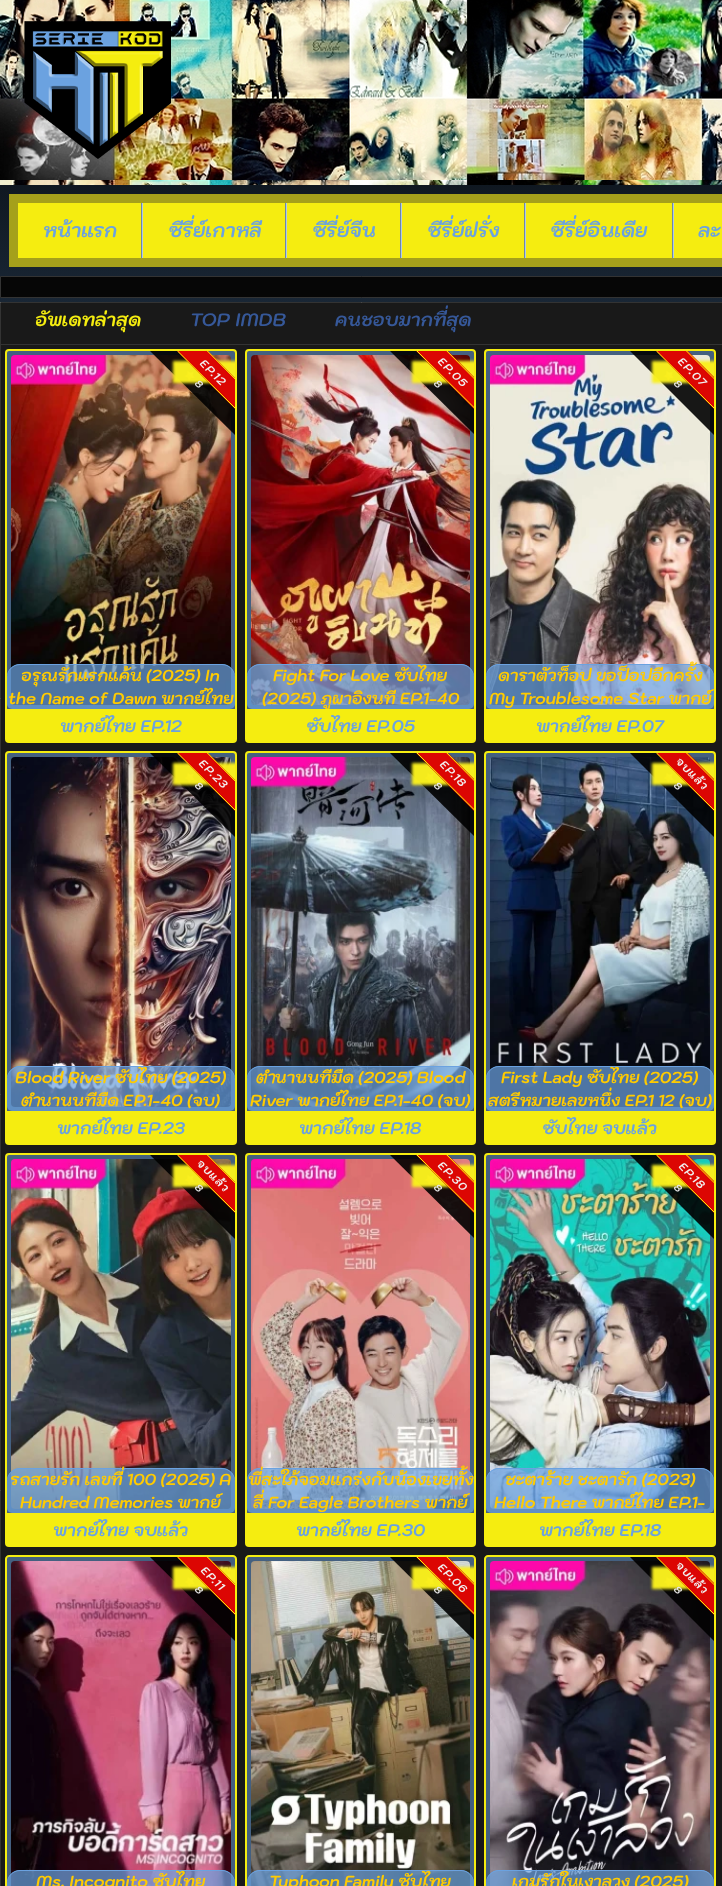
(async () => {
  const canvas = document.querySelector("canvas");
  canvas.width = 722;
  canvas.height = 1886;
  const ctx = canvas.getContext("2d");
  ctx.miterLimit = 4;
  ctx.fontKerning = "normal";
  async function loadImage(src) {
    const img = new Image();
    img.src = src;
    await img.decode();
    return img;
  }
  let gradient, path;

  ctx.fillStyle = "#ffffff";
  ctx.fillRect(0, 0, 722, 1886);
  gradient = ctx.createLinearGradient(361, 0, 361, 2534);
  gradient.addColorStop(0, "#000000");
  gradient.addColorStop(0.5, "#6ba2e0");
  gradient.addColorStop(1, "#000000");
  ctx.fillStyle = gradient;
  ctx.fillRect(0, 185, 722, 117);
  ctx.drawImage(await loadImage("img/1.png"), 0, 0, 722, 185);
  ctx.drawImage(await loadImage("img/2.png"), 24, 21, 147, 138);
  for (const [x, y, w, h, color] of [
    [9, 194, 713, 73, "#a5a01b"],
    [18, 203, 123, 55, "#f5ed10"],
    [141, 203, 1, 55, "#6f88a5"],
    [143, 203, 142, 55, "#f5ed10"],
    [285, 203, 1, 55, "#6f88a5"],
    [142, 203, 1, 55, "#b1cbe8"],
    [287, 203, 113, 55, "#f5ed10"],
    [400, 203, 1, 55, "#6f88a5"],
    [286, 203, 1, 55, "#b1cbe8"],
    [402, 203, 122, 55, "#f5ed10"],
    [524, 203, 1, 55, "#6f88a5"],
    [401, 203, 1, 55, "#b1cbe8"],
    [526, 203, 146, 55, "#f5ed10"],
    [672, 203, 1, 55, "#6f88a5"],
    [525, 203, 1, 55, "#b1cbe8"],
    [674, 203, 48, 55, "#f5ed10"],
    [673, 203, 1, 55, "#b1cbe8"],
  ]) {
    ctx.fillStyle = color;
    ctx.fillRect(x, y, w, h);
  }
  ctx.fillStyle = "#060606";
  ctx.beginPath();
  ctx.rect(0.5, 276.5, 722, 21);
  ctx.fill();
  ctx.strokeStyle = "#333333";
  ctx.stroke();
  ctx.fillStyle = "#191919";
  ctx.beginPath();
  ctx.rect(0.5, 302.5, 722, 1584);
  ctx.fill();
  ctx.stroke();
  ctx.fillStyle = "#333333";
  ctx.fillRect(1, 344, 721, 1);
  ctx.fillStyle = "#446080";
  ctx.beginPath();
  ctx.roundRect(6, 350, 230, 360, [3, 3, 0, 0]);
  ctx.fill();
  ctx.strokeStyle = "#f5ed10";
  ctx.lineWidth = 2;
  ctx.stroke();
  ctx.drawImage(await loadImage("img/3.png"), 11, 355, 220, 350);
  ctx.fillStyle = "rgba(0, 0, 0, 0.9)";
  path = new Path2D("M235 435L150 351H179L235 407Z");
  ctx.fill(path);
  ctx.drawImage(await loadImage("img/4.png"), 184, 370, 11, 12);
  ctx.save();
  path = new Path2D("M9 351H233C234 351 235 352 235 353V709H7V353C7 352 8 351 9 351Z");
  ctx.clip(path);
  ctx.fillStyle = "rgba(249, 240, 30, 0.98)";
  ctx.filter = "blur(1.5px)";
  ctx.beginPath();
  ctx.rect(173, 361, 82, 22);
  ctx.fill();
  ctx.filter = "none";
  ctx.restore();
  ctx.fillStyle = "rgba(107, 162, 224, 0.71)";
  ctx.beginPath();
  ctx.roundRect(7, 664, 228, 45, [13, 13, 5, 5]);
  ctx.fill();
  ctx.fillStyle = "#6ba2e0";
  path = new Path2D("M20 665C13 665 7 671 7 678V677C7 670 13 664 20 664H222C229 664 235 670 235 677V678C235 671 229 665 222 665Z");
  ctx.fill(path);
  ctx.fillStyle = "#f5ed10";
  ctx.beginPath();
  ctx.roundRect(5, 711, 232, 32, [0, 0, 4, 4]);
  ctx.fill();
  ctx.fillStyle = "#446080";
  ctx.beginPath();
  ctx.roundRect(246, 350, 229, 360, [3, 3, 0, 0]);
  ctx.fill();
  ctx.stroke();
  ctx.drawImage(await loadImage("img/5.png"), 251, 355, 219, 350);
  ctx.fillStyle = "rgba(0, 0, 0, 0.9)";
  path = new Path2D("M474 434L390 351H418L474 407Z");
  ctx.fill(path);
  ctx.drawImage(await loadImage("img/6.png"), 424, 370, 11, 12);
  ctx.save();
  path = new Path2D("M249 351H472C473 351 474 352 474 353V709H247V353C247 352 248 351 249 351Z");
  ctx.clip(path);
  ctx.fillStyle = "rgba(249, 240, 30, 0.98)";
  ctx.filter = "blur(1.5px)";
  ctx.beginPath();
  ctx.rect(412, 361, 82, 22);
  ctx.fill();
  ctx.filter = "none";
  ctx.restore();
  ctx.fillStyle = "rgba(107, 162, 224, 0.71)";
  ctx.beginPath();
  ctx.roundRect(247, 664, 227, 45, [13, 13, 5, 5]);
  ctx.fill();
  ctx.fillStyle = "#6ba2e0";
  path = new Path2D("M260 665C253 665 247 671 247 678V677C247 670 253 664 260 664H461C468 664 474 670 474 677V678C474 671 468 665 461 665Z");
  ctx.fill(path);
  ctx.fillStyle = "#f5ed10";
  ctx.beginPath();
  ctx.roundRect(245, 711, 231, 32, [0, 0, 4, 4]);
  ctx.fill();
  ctx.fillStyle = "#446080";
  ctx.beginPath();
  ctx.roundRect(485, 350, 230, 360, [3, 3, 0, 0]);
  ctx.fill();
  ctx.stroke();
  ctx.drawImage(await loadImage("img/7.png"), 490, 355, 220, 350);
  ctx.fillStyle = "rgba(0, 0, 0, 0.9)";
  path = new Path2D("M714 435L630 351H658L714 407Z");
  ctx.fill(path);
  ctx.drawImage(await loadImage("img/8.png"), 663, 370, 11, 12);
  ctx.save();
  path = new Path2D("M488 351H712C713 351 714 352 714 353V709H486V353C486 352 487 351 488 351Z");
  ctx.clip(path);
  ctx.fillStyle = "rgba(249, 240, 30, 0.98)";
  ctx.filter = "blur(1.5px)";
  ctx.beginPath();
  ctx.rect(652, 361, 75, 22);
  ctx.fill();
  ctx.filter = "none";
  ctx.restore();
  ctx.fillStyle = "rgba(107, 162, 224, 0.71)";
  ctx.beginPath();
  ctx.roundRect(486, 664, 228, 45, [13, 13, 5, 5]);
  ctx.fill();
  ctx.fillStyle = "#6ba2e0";
  path = new Path2D("M499 665C492 665 486 671 486 678V677C486 670 492 664 499 664H701C708 664 714 670 714 677V678C714 671 708 665 701 665Z");
  ctx.fill(path);
  ctx.fillStyle = "#f5ed10";
  ctx.beginPath();
  ctx.roundRect(484, 711, 232, 32, [0, 0, 4, 4]);
  ctx.fill();
  ctx.fillStyle = "#446080";
  ctx.beginPath();
  ctx.roundRect(6, 752, 230, 360, [3, 3, 0, 0]);
  ctx.fill();
  ctx.stroke();
  ctx.drawImage(await loadImage("img/9.png"), 11, 757, 220, 350);
  ctx.fillStyle = "rgba(0, 0, 0, 0.9)";
  path = new Path2D("M235 837L150 753H179L235 809Z");
  ctx.fill(path);
  ctx.drawImage(await loadImage("img/10.png"), 184, 772, 11, 12);
  ctx.save();
  path = new Path2D("M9 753H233C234 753 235 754 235 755V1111H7V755C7 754 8 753 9 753Z");
  ctx.clip(path);
  ctx.fillStyle = "rgba(249, 240, 30, 0.98)";
  ctx.filter = "blur(1.5px)";
  ctx.beginPath();
  ctx.rect(173, 763, 82, 22);
  ctx.fill();
  ctx.filter = "none";
  ctx.restore();
  ctx.fillStyle = "rgba(107, 162, 224, 0.71)";
  ctx.beginPath();
  ctx.roundRect(7, 1066, 228, 45, [13, 13, 5, 5]);
  ctx.fill();
  ctx.fillStyle = "#6ba2e0";
  path = new Path2D("M20 1067C13 1067 7 1073 7 1080V1079C7 1072 13 1066 20 1066H222C229 1066 235 1072 235 1079V1080C235 1073 229 1067 222 1067Z");
  ctx.fill(path);
  ctx.fillStyle = "#f5ed10";
  ctx.beginPath();
  ctx.roundRect(5, 1113, 232, 32, [0, 0, 4, 4]);
  ctx.fill();
  ctx.fillStyle = "#446080";
  ctx.beginPath();
  ctx.roundRect(246, 752, 229, 360, [3, 3, 0, 0]);
  ctx.fill();
  ctx.stroke();
  ctx.drawImage(await loadImage("img/11.png"), 251, 757, 219, 350);
  ctx.fillStyle = "rgba(0, 0, 0, 0.9)";
  path = new Path2D("M474 836L390 753H418L474 809Z");
  ctx.fill(path);
  ctx.drawImage(await loadImage("img/12.png"), 424, 772, 11, 12);
  ctx.save();
  path = new Path2D("M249 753H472C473 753 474 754 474 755V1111H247V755C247 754 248 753 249 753Z");
  ctx.clip(path);
  ctx.fillStyle = "rgba(249, 240, 30, 0.98)";
  ctx.filter = "blur(1.5px)";
  ctx.beginPath();
  ctx.rect(412, 763, 82, 22);
  ctx.fill();
  ctx.filter = "none";
  ctx.restore();
  ctx.fillStyle = "rgba(107, 162, 224, 0.71)";
  ctx.beginPath();
  ctx.roundRect(247, 1066, 227, 45, [13, 13, 5, 5]);
  ctx.fill();
  ctx.fillStyle = "#6ba2e0";
  path = new Path2D("M260 1067C253 1067 247 1073 247 1080V1079C247 1072 253 1066 260 1066H461C468 1066 474 1072 474 1079V1080C474 1073 468 1067 461 1067Z");
  ctx.fill(path);
  ctx.fillStyle = "#f5ed10";
  ctx.beginPath();
  ctx.roundRect(245, 1113, 231, 32, [0, 0, 4, 4]);
  ctx.fill();
  ctx.fillStyle = "#446080";
  ctx.beginPath();
  ctx.roundRect(485, 752, 230, 360, [3, 3, 0, 0]);
  ctx.fill();
  ctx.stroke();
  ctx.drawImage(await loadImage("img/13.png"), 490, 757, 220, 350);
  ctx.fillStyle = "rgba(0, 0, 0, 0.9)";
  path = new Path2D("M714 837L630 753H658L714 809Z");
  ctx.fill(path);
  ctx.drawImage(await loadImage("img/14.png"), 663, 772, 11, 12);
  ctx.save();
  path = new Path2D("M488 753H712C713 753 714 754 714 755V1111H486V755C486 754 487 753 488 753Z");
  ctx.clip(path);
  ctx.fillStyle = "rgba(249, 240, 30, 0.98)";
  ctx.filter = "blur(1.5px)";
  ctx.beginPath();
  ctx.rect(652, 763, 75, 22);
  ctx.fill();
  ctx.filter = "none";
  ctx.restore();
  ctx.fillStyle = "rgba(107, 162, 224, 0.71)";
  ctx.beginPath();
  ctx.roundRect(486, 1066, 228, 45, [13, 13, 5, 5]);
  ctx.fill();
  ctx.fillStyle = "#6ba2e0";
  path = new Path2D("M499 1067C492 1067 486 1073 486 1080V1079C486 1072 492 1066 499 1066H701C708 1066 714 1072 714 1079V1080C714 1073 708 1067 701 1067Z");
  ctx.fill(path);
  ctx.fillStyle = "#f5ed10";
  ctx.beginPath();
  ctx.roundRect(484, 1113, 232, 32, [0, 0, 4, 4]);
  ctx.fill();
  ctx.fillStyle = "#446080";
  ctx.beginPath();
  ctx.roundRect(6, 1154, 230, 360, [3, 3, 0, 0]);
  ctx.fill();
  ctx.stroke();
  ctx.drawImage(await loadImage("img/15.png"), 11, 1159, 220, 350);
  ctx.fillStyle = "rgba(0, 0, 0, 0.9)";
  path = new Path2D("M235 1239L150 1155H179L235 1211Z");
  ctx.fill(path);
  ctx.drawImage(await loadImage("img/16.png"), 184, 1174, 11, 12);
  ctx.save();
  path = new Path2D("M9 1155H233C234 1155 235 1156 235 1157V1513H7V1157C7 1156 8 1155 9 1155Z");
  ctx.clip(path);
  ctx.fillStyle = "rgba(249, 240, 30, 0.98)";
  ctx.filter = "blur(1.5px)";
  ctx.beginPath();
  ctx.rect(173, 1165, 82, 22);
  ctx.fill();
  ctx.filter = "none";
  ctx.restore();
  ctx.fillStyle = "rgba(107, 162, 224, 0.71)";
  ctx.beginPath();
  ctx.roundRect(7, 1468, 228, 45, [13, 13, 5, 5]);
  ctx.fill();
  ctx.fillStyle = "#6ba2e0";
  path = new Path2D("M20 1469C13 1469 7 1475 7 1482V1481C7 1474 13 1468 20 1468H222C229 1468 235 1474 235 1481V1482C235 1475 229 1469 222 1469Z");
  ctx.fill(path);
  ctx.fillStyle = "#f5ed10";
  ctx.beginPath();
  ctx.roundRect(5, 1515, 232, 32, [0, 0, 4, 4]);
  ctx.fill();
  ctx.fillStyle = "#446080";
  ctx.beginPath();
  ctx.roundRect(246, 1154, 229, 360, [3, 3, 0, 0]);
  ctx.fill();
  ctx.stroke();
  ctx.drawImage(await loadImage("img/17.png"), 251, 1159, 219, 350);
  ctx.fillStyle = "rgba(0, 0, 0, 0.9)";
  path = new Path2D("M474 1238L390 1155H418L474 1211Z");
  ctx.fill(path);
  ctx.drawImage(await loadImage("img/18.png"), 424, 1174, 11, 12);
  ctx.save();
  path = new Path2D("M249 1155H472C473 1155 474 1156 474 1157V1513H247V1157C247 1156 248 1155 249 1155Z");
  ctx.clip(path);
  ctx.fillStyle = "rgba(249, 240, 30, 0.98)";
  ctx.filter = "blur(1.5px)";
  ctx.beginPath();
  ctx.rect(412, 1165, 82, 22);
  ctx.fill();
  ctx.filter = "none";
  ctx.restore();
  ctx.fillStyle = "rgba(107, 162, 224, 0.71)";
  ctx.beginPath();
  ctx.roundRect(247, 1468, 227, 45, [13, 13, 5, 5]);
  ctx.fill();
  ctx.fillStyle = "#6ba2e0";
  path = new Path2D("M260 1469C253 1469 247 1475 247 1482V1481C247 1474 253 1468 260 1468H461C468 1468 474 1474 474 1481V1482C474 1475 468 1469 461 1469Z");
  ctx.fill(path);
  ctx.fillStyle = "#f5ed10";
  ctx.beginPath();
  ctx.roundRect(245, 1515, 231, 32, [0, 0, 4, 4]);
  ctx.fill();
  ctx.fillStyle = "#446080";
  ctx.beginPath();
  ctx.roundRect(485, 1154, 230, 360, [3, 3, 0, 0]);
  ctx.fill();
  ctx.stroke();
  ctx.drawImage(await loadImage("img/19.png"), 490, 1159, 220, 350);
  ctx.fillStyle = "rgba(0, 0, 0, 0.9)";
  path = new Path2D("M714 1239L630 1155H658L714 1211Z");
  ctx.fill(path);
  ctx.drawImage(await loadImage("img/20.png"), 663, 1174, 11, 12);
  ctx.save();
  path = new Path2D("M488 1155H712C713 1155 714 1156 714 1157V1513H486V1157C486 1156 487 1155 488 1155Z");
  ctx.clip(path);
  ctx.fillStyle = "rgba(249, 240, 30, 0.98)";
  ctx.filter = "blur(1.5px)";
  ctx.beginPath();
  ctx.rect(652, 1165, 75, 22);
  ctx.fill();
  ctx.filter = "none";
  ctx.restore();
  ctx.fillStyle = "rgba(107, 162, 224, 0.71)";
  ctx.beginPath();
  ctx.roundRect(486, 1468, 228, 45, [13, 13, 5, 5]);
  ctx.fill();
  ctx.fillStyle = "#6ba2e0";
  path = new Path2D("M499 1469C492 1469 486 1475 486 1482V1481C486 1474 492 1468 499 1468H701C708 1468 714 1474 714 1481V1482C714 1475 708 1469 701 1469Z");
  ctx.fill(path);
  ctx.fillStyle = "#f5ed10";
  ctx.beginPath();
  ctx.roundRect(484, 1515, 232, 32, [0, 0, 4, 4]);
  ctx.fill();
  ctx.fillStyle = "#446080";
  path = new Path2D("M9 1556H233C234.5 1556 236 1557.5 236 1559V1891H6V1559C6 1557.5 7.5 1556 9 1556Z");
  ctx.fill(path);
  ctx.stroke(path);
  ctx.drawImage(await loadImage("img/21.png"), 11, 1561, 220, 325);
  ctx.fillStyle = "rgba(0, 0, 0, 0.9)";
  path = new Path2D("M235 1641L150 1557H179L235 1613Z");
  ctx.fill(path);
  ctx.drawImage(await loadImage("img/22.png"), 184, 1576, 11, 12);
  ctx.save();
  path = new Path2D("M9 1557H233C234 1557 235 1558 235 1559V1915H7V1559C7 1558 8 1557 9 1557Z");
  ctx.clip(path);
  ctx.fillStyle = "rgba(249, 240, 30, 0.98)";
  ctx.filter = "blur(1.5px)";
  ctx.beginPath();
  ctx.rect(173, 1567, 82, 22);
  ctx.fill();
  ctx.filter = "none";
  ctx.restore();
  ctx.fillStyle = "rgba(107, 162, 224, 0.71)";
  path = new Path2D("M20 1870H222C229 1870 235 1876 235 1883V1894C235 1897 233 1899 230 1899H12C9 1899 7 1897 7 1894V1883C7 1876 13 1870 20 1870Z");
  ctx.fill(path);
  ctx.fillStyle = "#6ba2e0";
  path = new Path2D("M20 1871C13 1871 7 1877 7 1884V1883C7 1876 13 1870 20 1870H222C229 1870 235 1876 235 1883V1884C235 1877 229 1871 222 1871Z");
  ctx.fill(path);
  ctx.fillStyle = "#446080";
  path = new Path2D("M249 1556H472C473.5 1556 475 1557.5 475 1559V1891H246V1559C246 1557.5 247.5 1556 249 1556Z");
  ctx.fill(path);
  ctx.stroke(path);
  ctx.drawImage(await loadImage("img/23.png"), 251, 1561, 219, 325);
  ctx.fillStyle = "rgba(0, 0, 0, 0.9)";
  path = new Path2D("M474 1640L390 1557H418L474 1613Z");
  ctx.fill(path);
  ctx.drawImage(await loadImage("img/24.png"), 424, 1576, 11, 12);
  ctx.save();
  path = new Path2D("M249 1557H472C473 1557 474 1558 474 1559V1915H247V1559C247 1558 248 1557 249 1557Z");
  ctx.clip(path);
  ctx.fillStyle = "rgba(249, 240, 30, 0.98)";
  ctx.filter = "blur(1.5px)";
  ctx.beginPath();
  ctx.rect(412, 1567, 82, 22);
  ctx.fill();
  ctx.filter = "none";
  ctx.restore();
  ctx.fillStyle = "rgba(107, 162, 224, 0.71)";
  path = new Path2D("M260 1870H461C468 1870 474 1876 474 1883V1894C474 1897 472 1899 469 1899H252C249 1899 247 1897 247 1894V1883C247 1876 253 1870 260 1870Z");
  ctx.fill(path);
  ctx.fillStyle = "#6ba2e0";
  path = new Path2D("M260 1871C253 1871 247 1877 247 1884V1883C247 1876 253 1870 260 1870H461C468 1870 474 1876 474 1883V1884C474 1877 468 1871 461 1871Z");
  ctx.fill(path);
  ctx.fillStyle = "#446080";
  path = new Path2D("M488 1556H712C713.5 1556 715 1557.5 715 1559V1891H485V1559C485 1557.5 486.5 1556 488 1556Z");
  ctx.fill(path);
  ctx.stroke(path);
  ctx.drawImage(await loadImage("img/25.png"), 490, 1561, 220, 325);
  ctx.fillStyle = "rgba(0, 0, 0, 0.9)";
  path = new Path2D("M714 1641L630 1557H658L714 1613Z");
  ctx.fill(path);
  ctx.drawImage(await loadImage("img/26.png"), 663, 1576, 11, 12);
  ctx.save();
  path = new Path2D("M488 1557H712C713 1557 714 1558 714 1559V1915H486V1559C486 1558 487 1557 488 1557Z");
  ctx.clip(path);
  ctx.fillStyle = "rgba(249, 240, 30, 0.98)";
  ctx.filter = "blur(1.5px)";
  ctx.beginPath();
  ctx.rect(652, 1567, 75, 22);
  ctx.fill();
  ctx.filter = "none";
  ctx.restore();
  ctx.fillStyle = "rgba(107, 162, 224, 0.71)";
  path = new Path2D("M499 1870H701C708 1870 714 1876 714 1883V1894C714 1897 712 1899 709 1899H491C488 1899 486 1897 486 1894V1883C486 1876 492 1870 499 1870Z");
  ctx.fill(path);
  ctx.fillStyle = "#6ba2e0";
  path = new Path2D("M499 1871C492 1871 486 1877 486 1884V1883C486 1876 492 1870 499 1870H701C708 1870 714 1876 714 1883V1884C714 1877 708 1871 701 1871Z");
  ctx.fill(path);
  ctx.font = "italic bold 19px Kodchasan";
  for (const [text, x, y] of [
    ["หน้าแรก", 43, 237],
    ["ซีรี่ย์เกาหลี", 168, 237],
    ["ซีรี่ย์จีน", 312, 237],
    ["ซีรี่ย์ฝรั่ง", 427, 237],
    ["ซีรี่ย์อินเดีย", 550, 237],
    ["ละ", 698, 237],
  ]) {
    ctx.fillText(text, x, y);
  }
  ctx.font = "italic bold 18px Kodchasan";
  ctx.fillStyle = "#f5ed10";
  ctx.fillText("อัพเดทล่าสุด", 35, 326);
  ctx.fillStyle = "#365899";
  ctx.fillText("TOP IMDB", 190, 326);
  ctx.fillText("คนชอบมากที่สุด", 335, 326);
  ctx.letterSpacing = "5px";
  ctx.font = "italic bold 10px Kodchasan";
  ctx.fillStyle = "#e7e6e6";
  ctx.save();
  ctx.translate(194, 384);
  ctx.rotate(45 * Math.PI / 180);
  ctx.fillText("8", 0, 0);
  ctx.restore();
  ctx.fillStyle = "#dc0603";
  path = new Path2D("M235 378V409L177 351H208Z");
  ctx.fill(path);
  ctx.save();
  ctx.beginPath();
  ctx.roundRect(7, 351, 228, 358, [2, 2, 0, 0]);
  ctx.clip();
  path = new Path2D("M192.5 336L249.5 393.5L235 408L177.5 351Z");
  ctx.strokeStyle = "#ffff00";
  ctx.lineWidth = 1;
  ctx.stroke(path);
  ctx.restore();
  ctx.letterSpacing = "1px";
  ctx.font = "italic bold 11px Kodchasan";
  ctx.fillStyle = "#f0f0f0";
  ctx.save();
  ctx.translate(199, 364);
  ctx.rotate(45 * Math.PI / 180);
  ctx.fillText("EP.12", 0, 0);
  ctx.restore();
  ctx.letterSpacing = "0px";
  ctx.font = "italic bold 16px Kodchasan";
  ctx.fillStyle = "#ffcb00";
  ctx.fillText("อรุณรักแรกแค้น (2025) In", 21, 681);
  ctx.fillText("the Name of Dawn พากย์ไทย", 8, 704);
  ctx.font = "italic bold 16.75px Kodchasan";
  ctx.fillStyle = "#6ba2e0";
  ctx.fillText("พากย์ไทย EP.12", 60, 732);
  ctx.letterSpacing = "5px";
  ctx.font = "italic bold 10px Kodchasan";
  ctx.fillStyle = "#e7e6e6";
  ctx.save();
  ctx.translate(433, 384);
  ctx.rotate(45 * Math.PI / 180);
  ctx.fillText("8", 0, 0);
  ctx.restore();
  ctx.fillStyle = "#dc0603";
  path = new Path2D("M474 377V409L416 351H448Z");
  ctx.fill(path);
  ctx.save();
  ctx.beginPath();
  ctx.roundRect(247, 351, 227, 358, [2, 2, 0, 0]);
  ctx.clip();
  path = new Path2D("M432 336L489 393.5L474.5 408L417 351Z");
  ctx.strokeStyle = "#ffff00";
  ctx.lineWidth = 1;
  ctx.stroke(path);
  ctx.restore();
  ctx.letterSpacing = "1px";
  ctx.font = "italic bold 11px Kodchasan";
  ctx.fillStyle = "#f0f0f0";
  ctx.save();
  ctx.translate(437, 362);
  ctx.rotate(45 * Math.PI / 180);
  ctx.fillText("EP.05", 0, 0);
  ctx.restore();
  ctx.letterSpacing = "0px";
  ctx.font = "italic bold 16px Kodchasan";
  ctx.fillStyle = "#ffcb00";
  ctx.fillText("Fight For Love ซับไทย", 273, 681);
  ctx.save();
  ctx.beginPath();
  ctx.roundRect(247, 351, 227, 358, [2, 2, 0, 0]);
  ctx.clip();
  ctx.fillText("(2025) ภูผาอิงนที EP.1-40", 262, 704);
  ctx.restore();
  ctx.font = "italic bold 16.75px Kodchasan";
  ctx.fillStyle = "#6ba2e0";
  ctx.fillText("ซับไทย EP.05", 306, 732);
  ctx.letterSpacing = "5px";
  ctx.font = "italic bold 10px Kodchasan";
  ctx.fillStyle = "#e7e6e6";
  ctx.save();
  ctx.translate(673, 384);
  ctx.rotate(45 * Math.PI / 180);
  ctx.fillText("8", 0, 0);
  ctx.restore();
  ctx.fillStyle = "#dc0603";
  path = new Path2D("M714 377V409L656 351H688Z");
  ctx.fill(path);
  ctx.save();
  ctx.beginPath();
  ctx.roundRect(486, 351, 228, 358, [2, 2, 0, 0]);
  ctx.clip();
  path = new Path2D("M671.5 336L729 393.5L714 408L656.5 351Z");
  ctx.strokeStyle = "#ffff00";
  ctx.lineWidth = 1;
  ctx.stroke(path);
  ctx.restore();
  ctx.letterSpacing = "1px";
  ctx.font = "italic bold 11px Kodchasan";
  ctx.fillStyle = "#f0f0f0";
  ctx.save();
  ctx.translate(677, 362);
  ctx.rotate(45 * Math.PI / 180);
  ctx.fillText("EP.07", 0, 0);
  ctx.restore();
  ctx.letterSpacing = "0px";
  ctx.font = "italic bold 16px Kodchasan";
  ctx.fillStyle = "#ffcb00";
  ctx.fillText("ดาราตัวท็อป ขอป็อปอีกครั้ง", 498, 681);
  ctx.fillText("My Troublesome Star พากย์", 489, 704);
  ctx.font = "italic bold 16.75px Kodchasan";
  ctx.fillStyle = "#6ba2e0";
  ctx.fillText("พากย์ไทย EP.07", 536, 732);
  ctx.letterSpacing = "5px";
  ctx.font = "italic bold 10px Kodchasan";
  ctx.fillStyle = "#e7e6e6";
  ctx.save();
  ctx.translate(194, 786);
  ctx.rotate(45 * Math.PI / 180);
  ctx.fillText("8", 0, 0);
  ctx.restore();
  ctx.fillStyle = "#dc0603";
  path = new Path2D("M235 780V811L177 753H208Z");
  ctx.fill(path);
  ctx.save();
  ctx.beginPath();
  ctx.roundRect(7, 753, 228, 358, [2, 2, 0, 0]);
  ctx.clip();
  path = new Path2D("M192.5 738L249.5 795.5L235 810L177.5 753Z");
  ctx.strokeStyle = "#ffff00";
  ctx.lineWidth = 1;
  ctx.stroke(path);
  ctx.restore();
  ctx.letterSpacing = "1px";
  ctx.font = "italic bold 11px Kodchasan";
  ctx.fillStyle = "#f0f0f0";
  ctx.save();
  ctx.translate(198, 764);
  ctx.rotate(45 * Math.PI / 180);
  ctx.fillText("EP.23", 0, 0);
  ctx.restore();
  ctx.letterSpacing = "0px";
  ctx.font = "italic bold 16px Kodchasan";
  ctx.fillStyle = "#ffcb00";
  ctx.fillText("Blood River ซับไทย (2025)", 15, 1083);
  ctx.fillText("ตำนานนทีมืด EP.1-40 (จบ)", 20, 1106);
  ctx.font = "italic bold 16.75px Kodchasan";
  ctx.fillStyle = "#6ba2e0";
  ctx.fillText("พากย์ไทย EP.23", 57, 1134);
  ctx.letterSpacing = "5px";
  ctx.font = "italic bold 10px Kodchasan";
  ctx.fillStyle = "#e7e6e6";
  ctx.save();
  ctx.translate(433, 786);
  ctx.rotate(45 * Math.PI / 180);
  ctx.fillText("8", 0, 0);
  ctx.restore();
  ctx.fillStyle = "#dc0603";
  path = new Path2D("M474 779V811L416 753H448Z");
  ctx.fill(path);
  ctx.save();
  ctx.beginPath();
  ctx.roundRect(247, 753, 227, 358, [2, 2, 0, 0]);
  ctx.clip();
  path = new Path2D("M432 738L489 795.5L474.5 810L417 753Z");
  ctx.strokeStyle = "#ffff00";
  ctx.lineWidth = 1;
  ctx.stroke(path);
  ctx.restore();
  ctx.letterSpacing = "1px";
  ctx.font = "italic bold 11px Kodchasan";
  ctx.fillStyle = "#f0f0f0";
  ctx.save();
  ctx.translate(439, 765);
  ctx.rotate(45 * Math.PI / 180);
  ctx.fillText("EP.18", 0, 0);
  ctx.restore();
  ctx.letterSpacing = "0px";
  ctx.font = "italic bold 16px Kodchasan";
  ctx.fillStyle = "#ffcb00";
  ctx.fillText("ตำนานนทีมืด (2025) Blood", 255, 1083);
  ctx.fillText("River พากย์ไทย EP.1-40 (จบ)", 250, 1106);
  ctx.font = "italic bold 16.75px Kodchasan";
  ctx.fillStyle = "#6ba2e0";
  ctx.fillText("พากย์ไทย EP.18", 299, 1134);
  ctx.letterSpacing = "5px";
  ctx.font = "italic bold 10px Kodchasan";
  ctx.fillStyle = "#e7e6e6";
  ctx.save();
  ctx.translate(673, 786);
  ctx.rotate(45 * Math.PI / 180);
  ctx.fillText("8", 0, 0);
  ctx.restore();
  ctx.fillStyle = "#dc0603";
  path = new Path2D("M714 779V811L656 753H688Z");
  ctx.fill(path);
  ctx.save();
  ctx.beginPath();
  ctx.roundRect(486, 753, 228, 358, [2, 2, 0, 0]);
  ctx.clip();
  path = new Path2D("M671.5 738L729 795.5L714 810L656.5 753Z");
  ctx.strokeStyle = "#ffff00";
  ctx.lineWidth = 1;
  ctx.stroke(path);
  ctx.restore();
  ctx.letterSpacing = "1px";
  ctx.font = "italic bold 11px Kodchasan";
  ctx.fillStyle = "#f0f0f0";
  ctx.save();
  ctx.translate(675, 762);
  ctx.rotate(45 * Math.PI / 180);
  ctx.fillText("จบแล้ว", 0, 0);
  ctx.restore();
  ctx.letterSpacing = "0px";
  ctx.font = "italic bold 16px Kodchasan";
  ctx.fillStyle = "#ffcb00";
  ctx.fillText("First Lady ซับไทย (2025)", 501, 1083);
  ctx.fillText("สตรีหมายเลขหนึ่ง EP.1 12 (จบ)", 488, 1106);
  ctx.font = "italic bold 16.75px Kodchasan";
  ctx.fillStyle = "#6ba2e0";
  ctx.fillText("ซับไทย จบแล้ว", 542, 1134);
  ctx.letterSpacing = "5px";
  ctx.font = "italic bold 10px Kodchasan";
  ctx.fillStyle = "#e7e6e6";
  ctx.save();
  ctx.translate(194, 1188);
  ctx.rotate(45 * Math.PI / 180);
  ctx.fillText("8", 0, 0);
  ctx.restore();
  ctx.fillStyle = "#dc0603";
  path = new Path2D("M235 1182V1213L177 1155H208Z");
  ctx.fill(path);
  ctx.save();
  ctx.beginPath();
  ctx.roundRect(7, 1155, 228, 358, [2, 2, 0, 0]);
  ctx.clip();
  path = new Path2D("M192.5 1140L249.5 1197.5L235 1212L177.5 1155Z");
  ctx.strokeStyle = "#ffff00";
  ctx.lineWidth = 1;
  ctx.stroke(path);
  ctx.restore();
  ctx.letterSpacing = "1px";
  ctx.font = "italic bold 11px Kodchasan";
  ctx.fillStyle = "#f0f0f0";
  ctx.save();
  ctx.translate(196, 1164);
  ctx.rotate(45 * Math.PI / 180);
  ctx.fillText("จบแล้ว", 0, 0);
  ctx.restore();
  ctx.letterSpacing = "0px";
  ctx.font = "italic bold 16px Kodchasan";
  ctx.fillStyle = "#ffcb00";
  ctx.fillText("รถสายรัก เลขที่ 100 (2025) A", 10, 1485);
  ctx.fillText("Hundred Memories พากย์", 20, 1508);
  ctx.font = "italic bold 16.75px Kodchasan";
  ctx.fillStyle = "#6ba2e0";
  ctx.fillText("พากย์ไทย จบแล้ว", 53, 1536);
  ctx.letterSpacing = "5px";
  ctx.font = "italic bold 10px Kodchasan";
  ctx.fillStyle = "#e7e6e6";
  ctx.save();
  ctx.translate(433, 1188);
  ctx.rotate(45 * Math.PI / 180);
  ctx.fillText("8", 0, 0);
  ctx.restore();
  ctx.fillStyle = "#dc0603";
  path = new Path2D("M474 1181V1213L416 1155H448Z");
  ctx.fill(path);
  ctx.save();
  ctx.beginPath();
  ctx.roundRect(247, 1155, 227, 358, [2, 2, 0, 0]);
  ctx.clip();
  path = new Path2D("M432 1140L489 1197.5L474.5 1212L417 1155Z");
  ctx.strokeStyle = "#ffff00";
  ctx.lineWidth = 1;
  ctx.stroke(path);
  ctx.restore();
  ctx.letterSpacing = "1px";
  ctx.font = "italic bold 11px Kodchasan";
  ctx.fillStyle = "#f0f0f0";
  ctx.save();
  ctx.translate(437, 1166);
  ctx.rotate(45 * Math.PI / 180);
  ctx.fillText("EP.30", 0, 0);
  ctx.restore();
  ctx.save();
  ctx.beginPath();
  ctx.roundRect(247, 1155, 227, 358, [2, 2, 0, 0]);
  ctx.clip();
  ctx.letterSpacing = "0px";
  ctx.font = "italic bold 16px Kodchasan";
  ctx.fillStyle = "#ffcb00";
  ctx.fillText("พี่สะใภ้จอมแกร่งกับน้องเขยทั้ง", 248, 1485);
  ctx.fillText("สี่ For Eagle Brothers พากย์", 253, 1508);
  ctx.restore();
  ctx.letterSpacing = "0px";
  ctx.font = "italic bold 16.75px Kodchasan";
  ctx.fillStyle = "#6ba2e0";
  ctx.fillText("พากย์ไทย EP.30", 296, 1536);
  ctx.letterSpacing = "5px";
  ctx.font = "italic bold 10px Kodchasan";
  ctx.fillStyle = "#e7e6e6";
  ctx.save();
  ctx.translate(673, 1188);
  ctx.rotate(45 * Math.PI / 180);
  ctx.fillText("8", 0, 0);
  ctx.restore();
  ctx.fillStyle = "#dc0603";
  path = new Path2D("M714 1181V1213L656 1155H688Z");
  ctx.fill(path);
  ctx.save();
  ctx.beginPath();
  ctx.roundRect(486, 1155, 228, 358, [2, 2, 0, 0]);
  ctx.clip();
  path = new Path2D("M671.5 1140L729 1197.5L714 1212L656.5 1155Z");
  ctx.strokeStyle = "#ffff00";
  ctx.lineWidth = 1;
  ctx.stroke(path);
  ctx.restore();
  ctx.letterSpacing = "1px";
  ctx.font = "italic bold 11px Kodchasan";
  ctx.fillStyle = "#f0f0f0";
  ctx.save();
  ctx.translate(678, 1167);
  ctx.rotate(45 * Math.PI / 180);
  ctx.fillText("EP.18", 0, 0);
  ctx.restore();
  ctx.letterSpacing = "0px";
  ctx.font = "italic bold 16px Kodchasan";
  ctx.fillStyle = "#ffcb00";
  ctx.fillText("ชะตาร้าย ชะตารัก (2023)", 505, 1485);
  ctx.fillText("Hello There พากย์ไทย EP.1-", 494, 1508);
  ctx.font = "italic bold 16.75px Kodchasan";
  ctx.fillStyle = "#6ba2e0";
  ctx.fillText("พากย์ไทย EP.18", 539, 1536);
  ctx.letterSpacing = "5px";
  ctx.font = "italic bold 10px Kodchasan";
  ctx.fillStyle = "#e7e6e6";
  ctx.save();
  ctx.translate(194, 1590);
  ctx.rotate(45 * Math.PI / 180);
  ctx.fillText("8", 0, 0);
  ctx.restore();
  ctx.fillStyle = "#dc0603";
  path = new Path2D("M235 1584V1615L177 1557H208Z");
  ctx.fill(path);
  ctx.save();
  path = new Path2D("M9 1557H233C234 1557 235 1558 235 1559V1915H7V1559C7 1558 8 1557 9 1557Z");
  ctx.clip(path);
  path = new Path2D("M192.5 1542L249.5 1599.5L235 1614L177.5 1557Z");
  ctx.strokeStyle = "#ffff00";
  ctx.lineWidth = 1;
  ctx.stroke(path);
  ctx.restore();
  ctx.letterSpacing = "1px";
  ctx.font = "italic bold 11px Kodchasan";
  ctx.fillStyle = "#f0f0f0";
  ctx.save();
  ctx.translate(200, 1571);
  ctx.rotate(45 * Math.PI / 180);
  ctx.fillText("EP.11", 0, 0);
  ctx.restore();
  ctx.letterSpacing = "0px";
  ctx.font = "italic bold 16px Kodchasan";
  ctx.fillStyle = "#ffcb00";
  ctx.fillText("Ms. Incognito ซับไทย", 36, 1887);
  ctx.letterSpacing = "5px";
  ctx.font = "italic bold 10px Kodchasan";
  ctx.fillStyle = "#e7e6e6";
  ctx.save();
  ctx.translate(433, 1590);
  ctx.rotate(45 * Math.PI / 180);
  ctx.fillText("8", 0, 0);
  ctx.restore();
  ctx.fillStyle = "#dc0603";
  path = new Path2D("M474 1583V1615L416 1557H448Z");
  ctx.fill(path);
  ctx.save();
  path = new Path2D("M249 1557H472C473 1557 474 1558 474 1559V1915H247V1559C247 1558 248 1557 249 1557Z");
  ctx.clip(path);
  path = new Path2D("M432 1542L489 1599.5L474.5 1614L417 1557Z");
  ctx.strokeStyle = "#ffff00";
  ctx.lineWidth = 1;
  ctx.stroke(path);
  ctx.restore();
  ctx.letterSpacing = "1px";
  ctx.font = "italic bold 11px Kodchasan";
  ctx.fillStyle = "#f0f0f0";
  ctx.save();
  ctx.translate(437, 1568);
  ctx.rotate(45 * Math.PI / 180);
  ctx.fillText("EP.06", 0, 0);
  ctx.restore();
  ctx.letterSpacing = "0px";
  ctx.font = "italic bold 16px Kodchasan";
  ctx.fillStyle = "#ffcb00";
  ctx.fillText("Typhoon Family ซับไทย", 269, 1887);
  ctx.letterSpacing = "5px";
  ctx.font = "italic bold 10px Kodchasan";
  ctx.fillStyle = "#e7e6e6";
  ctx.save();
  ctx.translate(673, 1590);
  ctx.rotate(45 * Math.PI / 180);
  ctx.fillText("8", 0, 0);
  ctx.restore();
  ctx.fillStyle = "#dc0603";
  path = new Path2D("M714 1583V1615L656 1557H688Z");
  ctx.fill(path);
  ctx.save();
  path = new Path2D("M488 1557H712C713 1557 714 1558 714 1559V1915H486V1559C486 1558 487 1557 488 1557Z");
  ctx.clip(path);
  path = new Path2D("M671.5 1542L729 1599.5L714 1614L656.5 1557Z");
  ctx.strokeStyle = "#ffff00";
  ctx.lineWidth = 1;
  ctx.stroke(path);
  ctx.restore();
  ctx.letterSpacing = "1px";
  ctx.font = "italic bold 11px Kodchasan";
  ctx.fillStyle = "#f0f0f0";
  ctx.save();
  ctx.translate(675, 1566);
  ctx.rotate(45 * Math.PI / 180);
  ctx.fillText("จบแล้ว", 0, 0);
  ctx.restore();
  ctx.letterSpacing = "0px";
  ctx.font = "italic bold 16px Kodchasan";
  ctx.fillStyle = "#ffcb00";
  ctx.fillText("เกมรักในเงาลวง (2025)", 512, 1887);
})();
